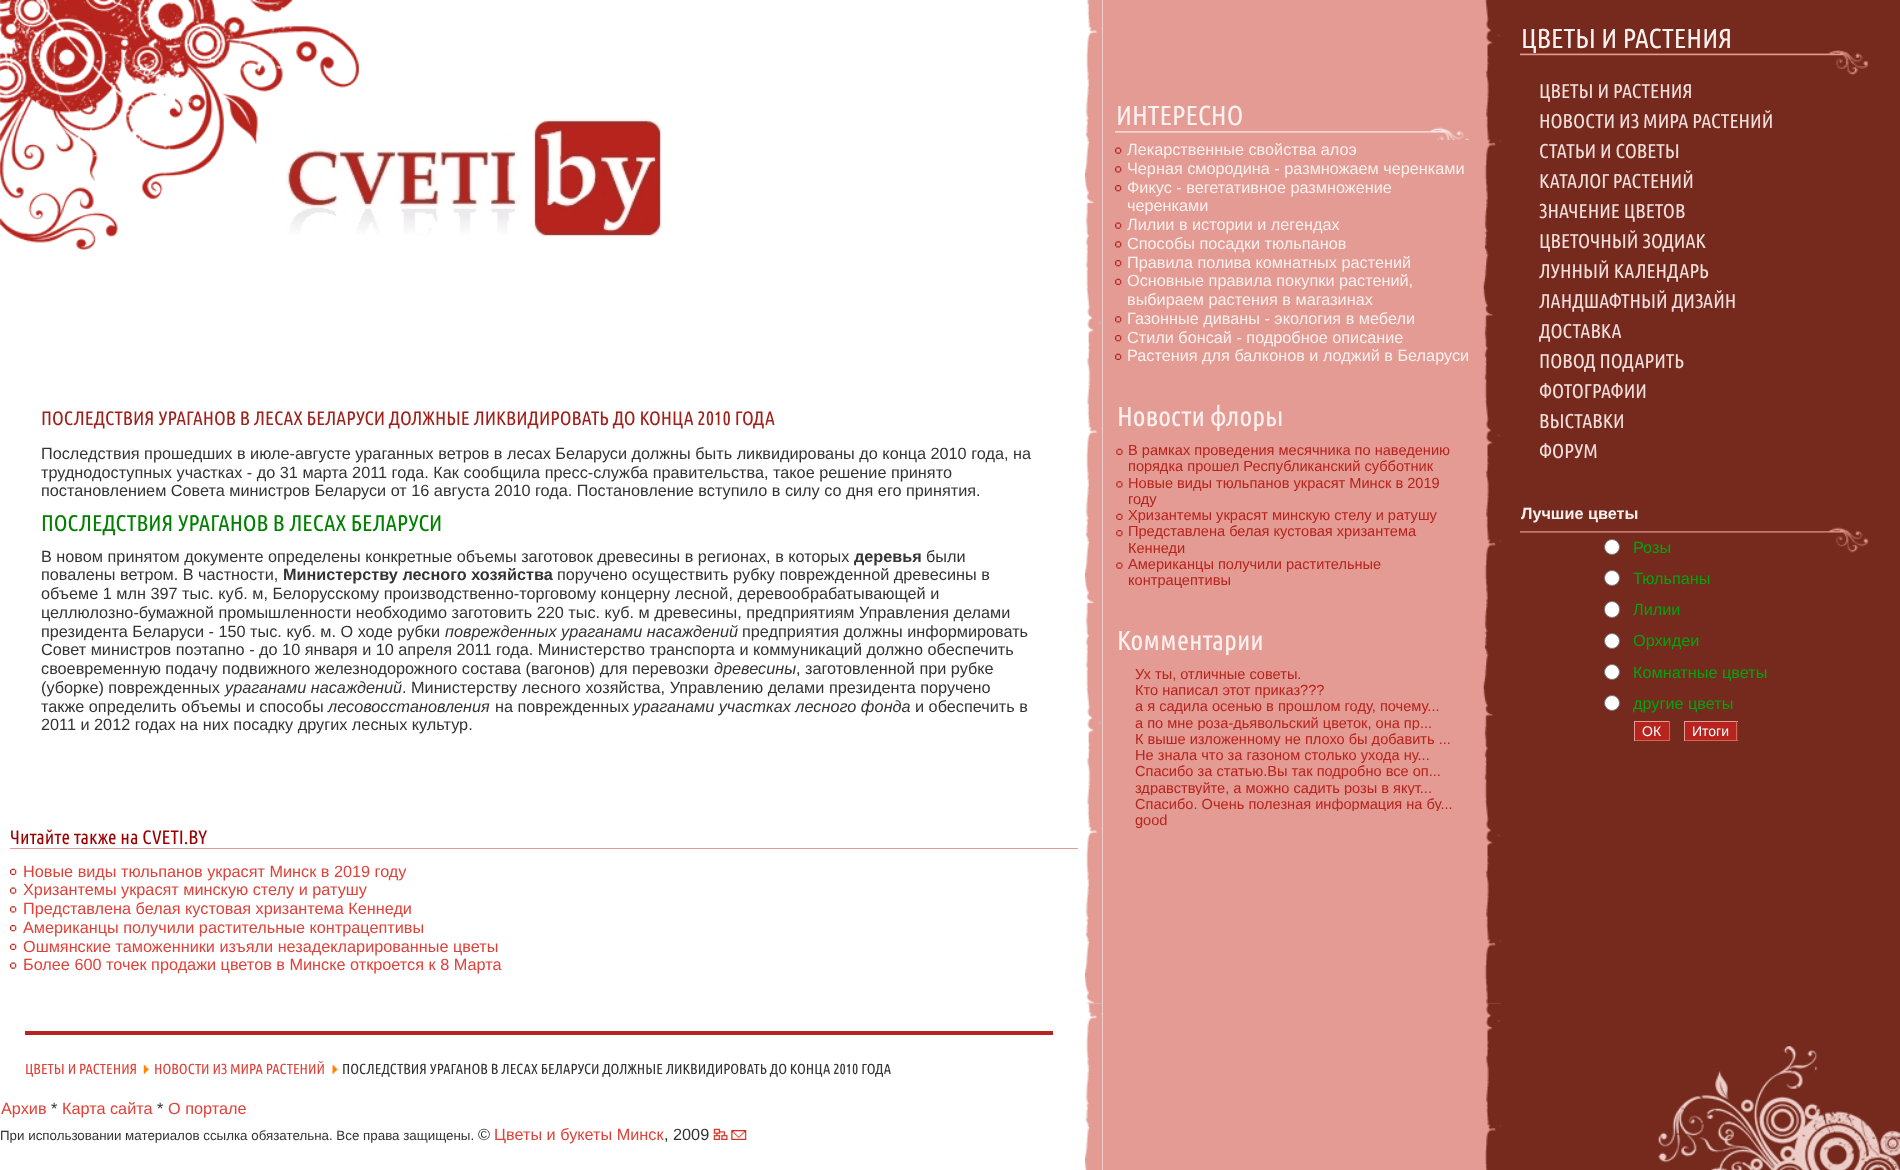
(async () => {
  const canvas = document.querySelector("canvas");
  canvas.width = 1900;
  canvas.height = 1170;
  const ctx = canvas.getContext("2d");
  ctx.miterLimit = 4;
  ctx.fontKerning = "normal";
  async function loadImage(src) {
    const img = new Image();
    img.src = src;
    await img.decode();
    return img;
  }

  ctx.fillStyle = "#ffffff";
  ctx.fillRect(0, 0, 1900, 1170);
  ctx.drawImage(await loadImage("img/1.png"), 1085, 0, 18, 1004);
  ctx.drawImage(await loadImage("img/2.png"), 0, 0, 359, 250);
  ctx.drawImage(await loadImage("img/3.png"), 286, 118, 376, 119);
  ctx.fillStyle = "#e39b93";
  ctx.fillRect(10, 848, 1068, 1);
  ctx.drawImage(await loadImage("img/4.png"), 10, 868, 7, 7);
  ctx.drawImage(await loadImage("img/5.png"), 10, 887, 7, 7);
  ctx.drawImage(await loadImage("img/6.png"), 10, 906, 7, 7);
  ctx.drawImage(await loadImage("img/7.png"), 10, 925, 7, 7);
  ctx.drawImage(await loadImage("img/4.png"), 10, 943, 7, 7);
  ctx.drawImage(await loadImage("img/5.png"), 10, 962, 7, 7);
  ctx.fillRect(1103, 0, 398, 1004);
  ctx.drawImage(await loadImage("img/8.png"), 1483, 0, 18, 1004);
  ctx.drawImage(await loadImage("img/9.png"), 1115, 127, 354, 13);
  ctx.drawImage(await loadImage("img/10.png"), 1115, 147, 7, 7);
  ctx.drawImage(await loadImage("img/11.png"), 1115, 166, 7, 7);
  ctx.drawImage(await loadImage("img/12.png"), 1115, 185, 7, 7);
  ctx.drawImage(await loadImage("img/10.png"), 1115, 222, 7, 7);
  ctx.drawImage(await loadImage("img/11.png"), 1115, 241, 7, 7);
  ctx.drawImage(await loadImage("img/12.png"), 1115, 260, 7, 7);
  ctx.drawImage(await loadImage("img/13.png"), 1115, 278, 7, 7);
  ctx.drawImage(await loadImage("img/11.png"), 1115, 316, 7, 7);
  ctx.drawImage(await loadImage("img/12.png"), 1115, 335, 7, 7);
  ctx.drawImage(await loadImage("img/13.png"), 1115, 353, 7, 7);
  ctx.drawImage(await loadImage("img/14.png"), 1116, 448, 7, 7);
  ctx.drawImage(await loadImage("img/15.png"), 1116, 481, 7, 7);
  ctx.drawImage(await loadImage("img/14.png"), 1116, 513, 7, 7);
  ctx.drawImage(await loadImage("img/16.png"), 1116, 530, 7, 7);
  ctx.drawImage(await loadImage("img/17.png"), 1116, 562, 7, 7);
  ctx.fillStyle = "#762a1d";
  ctx.fillRect(1501, 0, 399, 1004);
  ctx.drawImage(await loadImage("img/18.png"), 1520, 50, 349, 25);
  ctx.drawImage(await loadImage("img/19.png"), 1520, 51, 348, 24);
  ctx.drawImage(await loadImage("img/20.png"), 1520, 527, 349, 26);
  ctx.fillStyle = "#ffffff";
  ctx.beginPath();
  ctx.arc(1612, 547, 7.5, 0, Math.PI * 2);
  ctx.fill();
  ctx.strokeStyle = "#767676";
  ctx.stroke();
  ctx.beginPath();
  ctx.arc(1612, 578, 7.5, 0, Math.PI * 2);
  ctx.fill();
  ctx.stroke();
  ctx.beginPath();
  ctx.roundRect(1604.5, 601.5, 15, 16, 7.5);
  ctx.fill();
  ctx.stroke();
  ctx.beginPath();
  ctx.arc(1612, 641, 7.5, 0, Math.PI * 2);
  ctx.fill();
  ctx.stroke();
  ctx.beginPath();
  ctx.arc(1612, 672, 7.5, 0, Math.PI * 2);
  ctx.fill();
  ctx.stroke();
  ctx.beginPath();
  ctx.arc(1612, 703, 7.5, 0, Math.PI * 2);
  ctx.fill();
  ctx.stroke();
  for (const [x, y, w, h, color] of [
    [1635, 722, 34, 18, "#b6241d"],
    [1634, 721, 36, 1, "#e39b93"],
    [1669, 721, 1, 20, "#d56457"],
    [1634, 740, 36, 1, "#d56457"],
    [1634, 721, 1, 20, "#e39b93"],
    [1685, 722, 53, 18, "#b6241d"],
    [1684, 721, 54, 1, "#e39b93"],
    [1736, 721, 1, 20, "#d56457"],
    [1684, 740, 54, 1, "#d56457"],
    [1684, 721, 1, 20, "#e39b93"],
  ]) {
    ctx.fillStyle = color;
    ctx.fillRect(x, y, w, h);
  }
  ctx.drawImage(await loadImage("img/21.png"), 1085, 1003, 18, 167);
  ctx.fillStyle = "#b6241d";
  ctx.fillRect(25, 1031, 1028, 4);
  ctx.drawImage(await loadImage("img/22.png"), 143, 1064, 6, 10);
  ctx.drawImage(await loadImage("img/23.png"), 332, 1064, 6, 10);
  ctx.drawImage(await loadImage("img/24.png"), 713, 1128, 15, 12);
  ctx.drawImage(await loadImage("img/25.png"), 731, 1130, 16, 10);
  ctx.fillStyle = "#e39b93";
  ctx.fillRect(1103, 1004, 382, 166);
  ctx.drawImage(await loadImage("img/26.png"), 1485, 1003, 17, 167);
  ctx.fillStyle = "#762a1d";
  ctx.fillRect(1501, 1004, 399, 166);
  ctx.drawImage(await loadImage("img/27.png"), 1658, 1046, 242, 124);
  ctx.font = "19.5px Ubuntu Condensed";
  ctx.fillStyle = "#9f201a";
  ctx.fillText("ПОСЛЕДСТВИЯ УРАГАНОВ В ЛЕСАХ БЕЛАРУСИ ДОЛЖНЫЕ ЛИКВИДИРОВАТЬ ДО КОНЦА 2010 ГОДА", 41, 425);
  ctx.font = "16.25px Liberation Sans";
  ctx.fillStyle = "#333333";
  for (const [text, x, y] of [
    ["Последствия прошедших в июле-августе ураганных ветров в лесах Беларуси должны быть ликвидированы до конца 2010 года, на", 41, 459],
    ["труднодоступных участках - до 31 марта 2011 года. Как сообщила пресс-служба правительства, такое решение принято", 41, 478],
    ["постановлением Совета министров Беларуси от 16 августа 2010 года. Постановление вступило в силу со дня его принятия.", 41, 496],
  ]) {
    ctx.fillText(text, x, y);
  }
  ctx.font = "22.75px Ubuntu Condensed";
  ctx.fillStyle = "#008000";
  ctx.fillText("ПОСЛЕДСТВИЯ УРАГАНОВ В ЛЕСАХ БЕЛАРУСИ", 41, 531);
  ctx.font = "16.25px Liberation Sans";
  ctx.fillStyle = "#333333";
  ctx.fillText("В новом принятом документе определены конкретные объемы заготовок древесины в регионах, в которых", 41, 562);
  ctx.font = "bold 16.25px Liberation Sans";
  ctx.fillText("деревья", 854, 562);
  ctx.font = "16.25px Liberation Sans";
  ctx.fillText("были", 926, 562);
  ctx.fillText("повалены ветром. В частности,", 41, 580);
  ctx.font = "bold 16.25px Liberation Sans";
  ctx.fillText("Министерству лесного хозяйства", 283, 580);
  ctx.font = "16.25px Liberation Sans";
  for (const [text, x, y] of [
    ["поручено осуществить рубку поврежденной древесины в", 557, 580],
    ["объеме 1 млн 397 тыс. куб. м, Белорусскому производственно-торговому концерну лесной, деревообрабатывающей и", 41, 599],
    ["целлюлозно-бумажной промышленности необходимо заготовить 220 тыс. куб. м древесины, предприятиям Управления делами", 41, 618],
    ["президента Беларуси - 150 тыс. куб. м. О ходе рубки", 41, 637],
  ]) {
    ctx.fillText(text, x, y);
  }
  ctx.font = "italic 16.25px Liberation Sans";
  ctx.fillText("поврежденных ураганами насаждений", 445, 637);
  ctx.font = "16.25px Liberation Sans";
  for (const [text, x, y] of [
    ["предприятия должны информировать", 742, 637],
    ["Совет министров поэтапно - до 10 января и 10 апреля 2011 года. Министерство транспорта и коммуникаций должно обеспечить", 41, 655],
    ["своевременную подачу подвижного железнодорожного состава (вагонов) для перевозки", 41, 674],
  ]) {
    ctx.fillText(text, x, y);
  }
  ctx.font = "italic 16.25px Liberation Sans";
  ctx.fillText("древесины", 714, 674);
  ctx.font = "16.25px Liberation Sans";
  ctx.fillText(", заготовленной при рубке", 796, 674);
  ctx.fillText("(уборке) поврежденных", 41, 693);
  ctx.font = "italic 16.25px Liberation Sans";
  ctx.fillText("ураганами насаждений", 225, 693);
  ctx.font = "16.25px Liberation Sans";
  ctx.fillText(". Министерству лесного хозяйства, Управлению делами президента поручено", 402, 693);
  ctx.fillText("также определить объемы и способы", 41, 712);
  ctx.font = "italic 16.25px Liberation Sans";
  ctx.fillText("лесовосстановления", 328, 712);
  ctx.font = "16.25px Liberation Sans";
  ctx.fillText("на поврежденных", 495, 712);
  ctx.font = "italic 16.25px Liberation Sans";
  ctx.fillText("ураганами участках лесного фонда", 633, 712);
  ctx.font = "16.25px Liberation Sans";
  ctx.fillText("и обеспечить в", 915, 712);
  ctx.fillText("2011 и 2012 годах на них посадку других лесных культур.", 41, 730);
  ctx.font = "19.5px Ubuntu Condensed";
  ctx.fillStyle = "#990000";
  ctx.fillText("Читайте также на CVETI.BY", 10, 844);
  ctx.font = "16.25px Liberation Sans";
  ctx.fillStyle = "#e04138";
  for (const [text, x, y] of [
    ["Новые виды тюльпанов украсят Минск в 2019 году", 23, 877],
    ["Хризантемы украсят минскую стелу и ратушу", 23, 895],
    ["Представлена белая кустовая хризантема Кеннеди", 23, 914],
    ["Американцы получили растительные контрацептивы", 23, 933],
    ["Ошмянские таможенники изъяли незадекларированные цветы", 23, 952],
    ["Более 600 точек продажи цветов в Минске откроется к 8 Марта", 23, 970],
  ]) {
    ctx.fillText(text, x, y);
  }
  ctx.font = "27.5px Ubuntu Condensed";
  ctx.fillStyle = "#faf1ef";
  ctx.fillText("ИНТЕРЕСНО", 1116, 125);
  ctx.font = "16.25px Liberation Sans";
  for (const [text, x, y] of [
    ["Лекарственные свойства алоэ", 1127, 155],
    ["Черная смородина - размножаем черенками", 1127, 174],
    ["Фикус - вегетативное размножение", 1127, 193],
    ["черенками", 1127, 211],
    ["Лилии в истории и легендах", 1127, 230],
    ["Способы посадки тюльпанов", 1127, 249],
    ["Правила полива комнатных растений", 1127, 268],
    ["Основные правила покупки растений,", 1127, 286],
    ["выбираем растения в магазинах", 1127, 305],
    ["Газонные диваны - экология в мебели", 1127, 324],
    ["Стили бонсай - подробное описание", 1127, 343],
    ["Растения для балконов и лоджий в Беларуси", 1127, 361],
  ]) {
    ctx.fillText(text, x, y);
  }
  ctx.font = "27.5px Ubuntu Condensed";
  ctx.fillText("Новости флоры", 1117, 426);
  ctx.font = "14.6px Liberation Sans";
  ctx.fillStyle = "#b6241d";
  for (const [text, x, y] of [
    ["В рамках проведения месячника по наведению", 1128, 455],
    ["порядка прошел Республиканский субботник", 1128, 471],
    ["Новые виды тюльпанов украсят Минск в 2019", 1128, 488],
    ["году", 1128, 504],
    ["Хризантемы украсят минскую стелу и ратушу", 1128, 520],
    ["Представлена белая кустовая хризантема", 1128, 536],
    ["Кеннеди", 1128, 553],
    ["Американцы получили растительные", 1128, 569],
    ["контрацептивы", 1128, 585],
  ]) {
    ctx.fillText(text, x, y);
  }
  ctx.font = "27.5px Ubuntu Condensed";
  ctx.fillStyle = "#faf1ef";
  ctx.fillText("Комментарии", 1117, 650);
  ctx.font = "14.6px Liberation Sans";
  ctx.fillStyle = "#b6241d";
  for (const [text, x, y] of [
    ["Ух ты, отличные советы.", 1135, 679],
    ["Кто написал этот приказ???", 1135, 695],
    ["а я садила осенью в прошлом году, почему...", 1135, 711],
  ]) {
    ctx.fillText(text, x, y);
  }
  ctx.save();
  ctx.beginPath();
  ctx.rect(1123, 714, 330, 16);
  ctx.clip();
  ctx.fillText("а по мне роза-дьявольский цветок, она пр...", 1135, 728);
  ctx.restore();
  ctx.save();
  ctx.beginPath();
  ctx.rect(1123, 730, 330, 16);
  ctx.clip();
  ctx.fillText("К выше изложенному не плохо бы добавить ...", 1135, 744);
  ctx.restore();
  ctx.fillText("Не знала что за газоном столько ухода ну...", 1135, 760);
  ctx.fillText("Спасибо за статью.Вы так подробно все оп...", 1135, 776);
  ctx.save();
  ctx.beginPath();
  ctx.rect(1123, 779, 330, 16);
  ctx.clip();
  ctx.fillText("здравствуйте, а можно садить розы в якут...", 1135, 793);
  ctx.restore();
  ctx.save();
  ctx.beginPath();
  ctx.rect(1123, 795, 330, 16);
  ctx.clip();
  ctx.fillText("Спасибо. Очень полезная информация на бу...", 1135, 809);
  ctx.restore();
  ctx.fillText("good", 1135, 825);
  ctx.font = "27.5px Ubuntu Condensed";
  ctx.fillStyle = "#faf1ef";
  ctx.fillText("ЦВЕТЫ И РАСТЕНИЯ", 1521, 48);
  ctx.font = "20px Ubuntu Condensed";
  ctx.fillStyle = "#f2dedb";
  for (const [text, x, y] of [
    ["ЦВЕТЫ И РАСТЕНИЯ", 1539, 98],
    ["НОВОСТИ ИЗ МИРА РАСТЕНИЙ", 1539, 128],
    ["СТАТЬИ И СОВЕТЫ", 1539, 158],
    ["КАТАЛОГ РАСТЕНИЙ", 1539, 188],
    ["ЗНАЧЕНИЕ ЦВЕТОВ", 1539, 218],
    ["ЦВЕТОЧНЫЙ ЗОДИАК", 1539, 248],
    ["ЛУННЫЙ КАЛЕНДАРЬ", 1539, 278],
    ["ЛАНДШАФТНЫЙ ДИЗАЙН", 1539, 308],
    ["ДОСТАВКА", 1539, 338],
    ["ПОВОД ПОДАРИТЬ", 1539, 368],
    ["ФОТОГРАФИИ", 1539, 398],
    ["ВЫСТАВКИ", 1539, 428],
    ["ФОРУМ", 1539, 458],
  ]) {
    ctx.fillText(text, x, y);
  }
  ctx.font = "bold 16.25px Liberation Sans";
  ctx.fillStyle = "#faf1ef";
  ctx.fillText("Лучшие цветы", 1521, 519);
  ctx.font = "16.25px Liberation Sans";
  ctx.fillStyle = "#00a510";
  for (const [text, x, y] of [
    ["Розы", 1633, 553],
    ["Тюльпаны", 1633, 584],
    ["Лилии", 1633, 615],
    ["Орхидеи", 1633, 646],
    ["Комнатные цветы", 1633, 678],
    ["другие цветы", 1633, 709],
  ]) {
    ctx.fillText(text, x, y);
  }
  ctx.font = "14px Liberation Sans";
  ctx.fillStyle = "#fcfcfc";
  ctx.fillText("ОК", 1642, 736);
  ctx.fillText("Итоги", 1692, 736);
  ctx.font = "14.6px Ubuntu Condensed";
  ctx.fillStyle = "#e04138";
  ctx.fillText("ЦВЕТЫ И РАСТЕНИЯ", 25, 1074);
  ctx.fillText("НОВОСТИ ИЗ МИРА РАСТЕНИЙ", 154, 1074);
  ctx.fillStyle = "#333333";
  ctx.fillText("ПОСЛЕДСТВИЯ УРАГАНОВ В ЛЕСАХ БЕЛАРУСИ ДОЛЖНЫЕ ЛИКВИДИРОВАТЬ ДО КОНЦА 2010 ГОДА", 342, 1074);
  ctx.font = "16.25px Liberation Sans";
  ctx.fillStyle = "#e04138";
  ctx.fillText("Архив", 1, 1114);
  ctx.fillStyle = "#333333";
  ctx.fillText("*", 51, 1114);
  ctx.fillStyle = "#e04138";
  ctx.fillText("Карта сайта", 62, 1114);
  ctx.fillStyle = "#333333";
  ctx.fillText("*", 157, 1114);
  ctx.fillStyle = "#e04138";
  ctx.fillText("О портале", 168, 1114);
  ctx.font = "13.35px Liberation Sans";
  ctx.fillStyle = "#333333";
  ctx.fillText("При использовании материалов ссылка обязательна. Все права защищены.", 0, 1140);
  ctx.font = "16.25px Liberation Sans";
  ctx.fillText("©", 478, 1140);
  ctx.fillStyle = "#e04138";
  ctx.fillText("Цветы и букеты Минск", 494, 1140);
  ctx.fillStyle = "#333333";
  ctx.fillText(", 2009", 664, 1140);
})();
